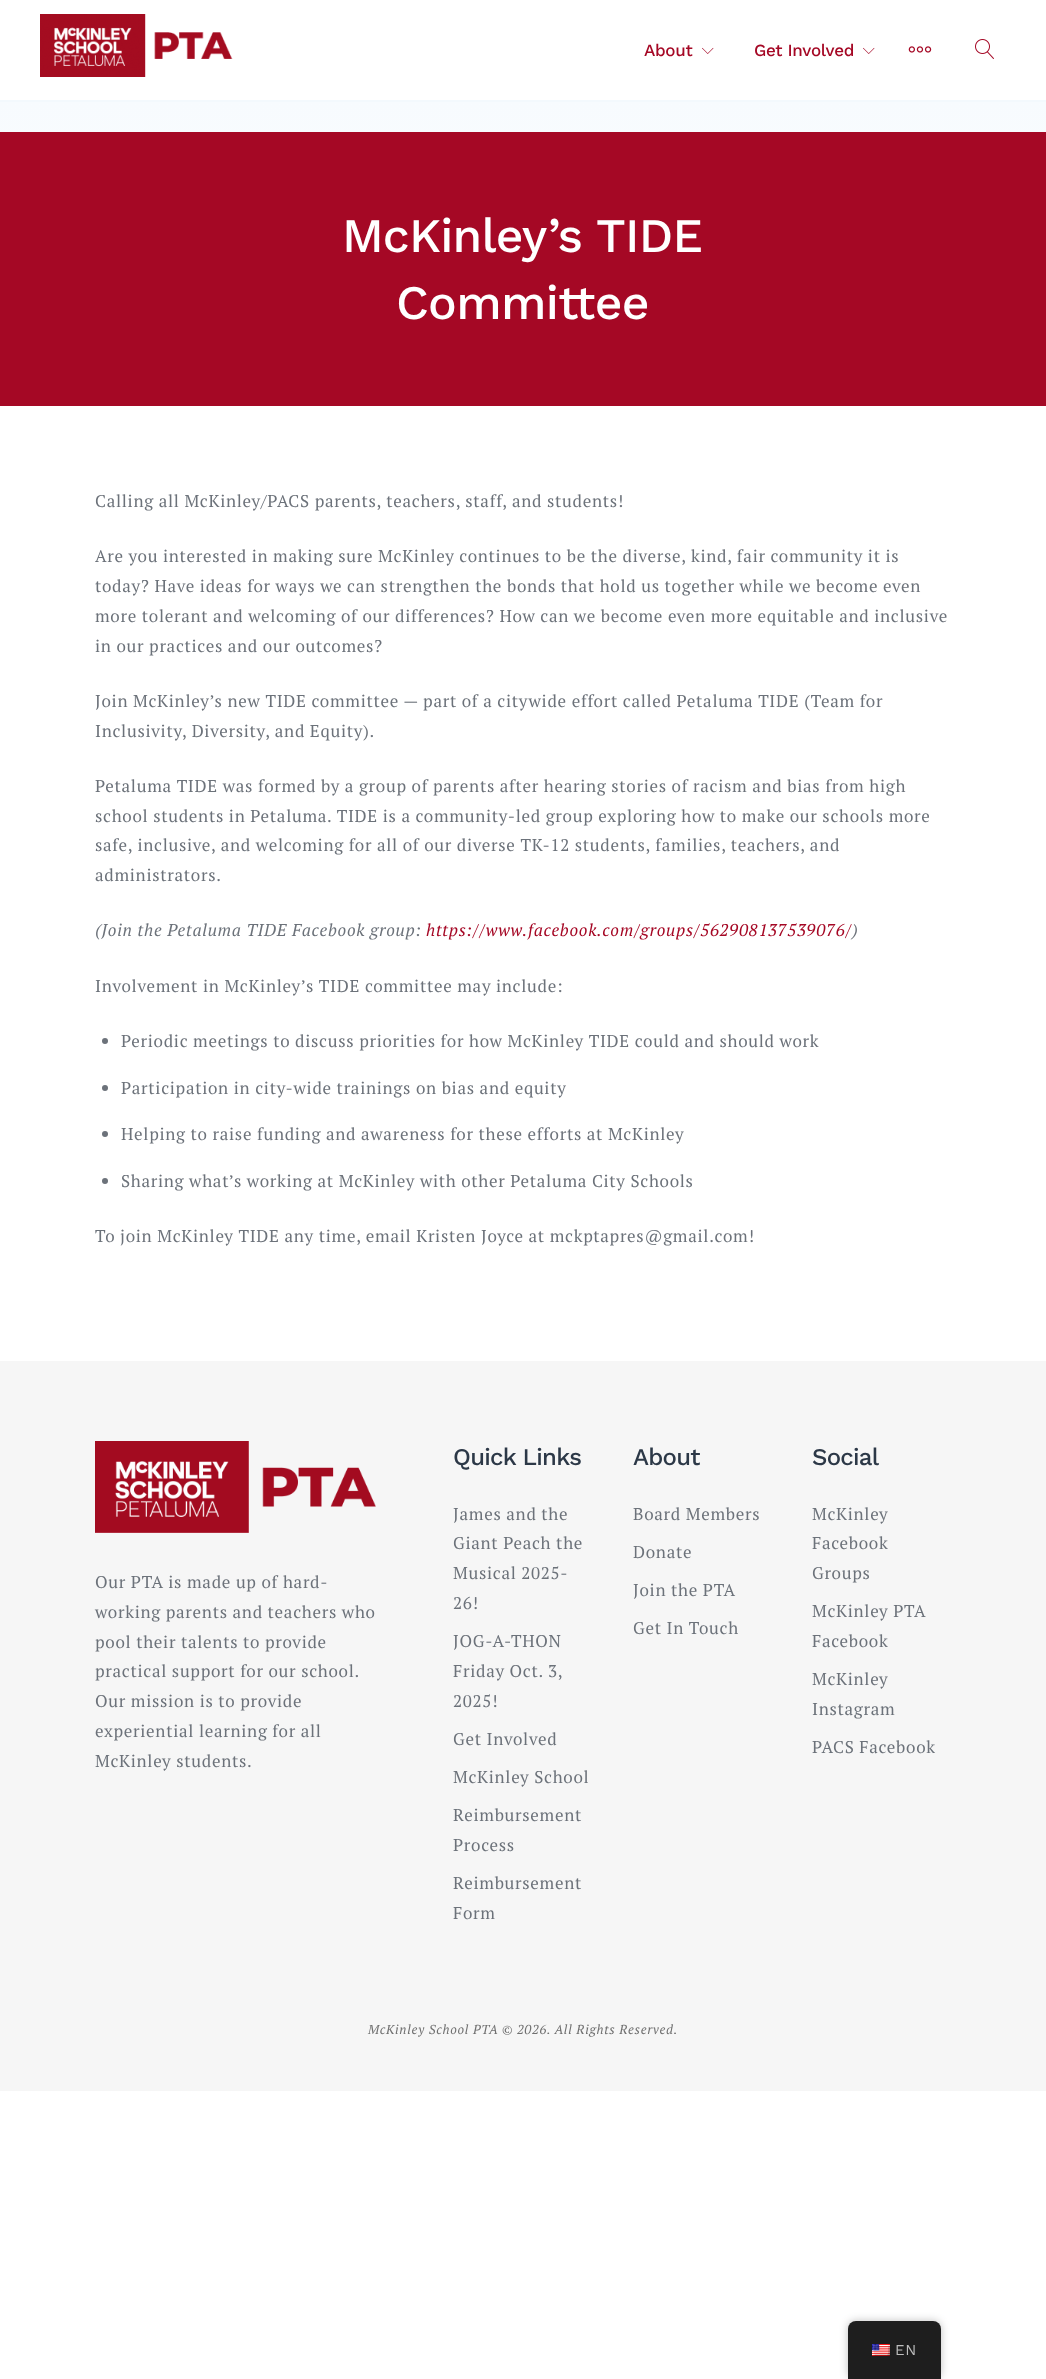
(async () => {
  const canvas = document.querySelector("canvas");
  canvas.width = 1046;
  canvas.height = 2379;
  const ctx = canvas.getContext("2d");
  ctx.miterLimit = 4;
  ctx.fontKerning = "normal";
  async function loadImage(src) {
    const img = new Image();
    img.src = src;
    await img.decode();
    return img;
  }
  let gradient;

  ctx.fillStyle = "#ffffff";
  ctx.fillRect(0, 0, 1046, 2379);
  ctx.fillStyle = "#f3f9fd";
  ctx.fillRect(0, 100, 1046, 2);
  ctx.drawImage(await loadImage("img/1.png"), 40, 14, 193, 63);
  ctx.drawImage(await loadImage("img/2.png"), 702, 47, 12, 7);
  ctx.drawImage(await loadImage("img/2.png"), 863, 47, 12, 7);
  ctx.drawImage(await loadImage("img/3.png"), 908, 46, 24, 7);
  ctx.drawImage(await loadImage("img/4.png"), 975, 39, 19, 20);
  gradient = ctx.createLinearGradient(523, 102, 523, 1251);
  gradient.addColorStop(0, "#f7fbfe");
  gradient.addColorStop(0.26, "#ffffff");
  ctx.fillStyle = gradient;
  ctx.fillRect(0, 102, 1046, 205);
  ctx.fillStyle = "#a50825";
  ctx.fillRect(0, 132, 1046, 274);
  ctx.fillStyle = "#6c727a";
  ctx.beginPath();
  ctx.arc(105, 1041, 3, 0, Math.PI * 2);
  ctx.fill();
  ctx.beginPath();
  ctx.arc(105, 1088, 3, 0, Math.PI * 2);
  ctx.fill();
  ctx.beginPath();
  ctx.arc(105, 1134, 3, 0, Math.PI * 2);
  ctx.fill();
  ctx.beginPath();
  ctx.arc(105, 1181, 3, 0, Math.PI * 2);
  ctx.fill();
  ctx.fillStyle = "#f6f6f6";
  ctx.fillRect(0, 1361, 1046, 730);
  ctx.drawImage(await loadImage("img/5.png"), 95, 1441, 281, 92);
  ctx.fillStyle = "rgba(0, 0, 0, 0.25)";
  ctx.filter = "blur(4px)";
  ctx.beginPath();
  ctx.roundRect(848, 2321, 93, 58, 8);
  ctx.fill();
  ctx.filter = "none";
  ctx.fillStyle = "#1e1e1e";
  ctx.beginPath();
  ctx.roundRect(848, 2321, 93, 58, [8, 8, 0, 0]);
  ctx.fill();
  ctx.drawImage(await loadImage("img/6.png"), 872, 2344, 18, 12);
  ctx.letterSpacing = "-0.3px";
  ctx.font = "500 17px Work Sans";
  ctx.fillStyle = "#a50825";
  ctx.fillText("About", 644, 56);
  ctx.fillText("Get Involved", 754, 56);
  ctx.letterSpacing = "-0.75px";
  ctx.font = "500 48px Work Sans";
  ctx.fillStyle = "#ffffff";
  ctx.fillText("McKinley’s TIDE", 342, 252);
  ctx.fillText("Committee", 396, 319);
  ctx.letterSpacing = "0.7px";
  ctx.font = "17px PT Serif";
  ctx.fillStyle = "#6c727a";
  for (const [text, x, y] of [
    ["Calling all McKinley/PACS parents, teachers, staff, and students!", 95, 507],
    ["Are you interested in making sure McKinley continues to be the diverse, kind, fair community it is", 95, 562],
    ["today? Have ideas for ways we can strengthen the bonds that hold us together while we become even", 95, 592],
    ["more tolerant and welcoming of our differences? How can we become even more equitable and inclusive", 95, 622],
    ["in our practices and our outcomes?", 95, 652],
    ["Join McKinley’s new TIDE committee — part of a citywide effort called Petaluma TIDE (Team for", 95, 707],
    ["Inclusivity, Diversity, and Equity).", 95, 737],
    ["Petaluma TIDE was formed by a group of parents after hearing stories of racism and bias from high", 95, 792],
    ["school students in Petaluma. TIDE is a community-led group exploring how to make our schools more", 95, 822],
    ["safe, inclusive, and welcoming for all of our diverse TK-12 students, families, teachers, and", 95, 851],
    ["administrators.", 95, 881],
  ]) {
    ctx.fillText(text, x, y);
  }
  ctx.font = "italic 17px PT Serif";
  ctx.fillText("(Join the Petaluma TIDE Facebook group:", 95, 936);
  ctx.fillStyle = "#a50825";
  ctx.fillText("https://www.facebook.com/groups/562908137539076/", 426, 936);
  ctx.fillStyle = "#6c727a";
  ctx.fillText(")", 852, 936);
  ctx.font = "17px PT Serif";
  for (const [text, x, y] of [
    ["Involvement in McKinley’s TIDE committee may include:", 95, 992],
    ["Periodic meetings to discuss priorities for how McKinley TIDE could and should work", 121, 1047],
    ["Participation in city-wide trainings on bias and equity", 121, 1094],
    ["Helping to raise funding and awareness for these efforts at McKinley", 121, 1140],
    ["Sharing what’s working at McKinley with other Petaluma City Schools", 121, 1187],
    ["To join McKinley TIDE any time, email Kristen Joyce at mckptapres@gmail.com!", 95, 1242],
    ["Our PTA is made up of hard-", 95, 1588],
    ["working parents and teachers who", 95, 1618],
    ["pool their talents to provide", 95, 1648],
    ["practical support for our school.", 95, 1677],
    ["Our mission is to provide", 95, 1707],
    ["experiential learning for all", 95, 1737],
    ["McKinley students.", 95, 1767],
  ]) {
    ctx.fillText(text, x, y);
  }
  ctx.letterSpacing = "-0.75px";
  ctx.font = "500 24px Work Sans";
  ctx.fillStyle = "#2c3847";
  ctx.fillText("Quick Links", 453, 1465);
  ctx.letterSpacing = "0.7px";
  ctx.font = "17px PT Serif";
  ctx.fillStyle = "#6c727a";
  for (const [text, x, y] of [
    ["James and the", 453, 1520],
    ["Giant Peach the", 453, 1549],
    ["Musical 2025-", 453, 1579],
    ["26!", 453, 1609],
    ["JOG-A-THON", 453, 1647],
    ["Friday Oct. 3,", 453, 1677],
    ["2025!", 453, 1707],
    ["Get Involved", 453, 1745],
    ["McKinley School", 453, 1783],
    ["Reimbursement", 453, 1821],
    ["Process", 453, 1851],
    ["Reimbursement", 453, 1889],
    ["Form", 453, 1919],
  ]) {
    ctx.fillText(text, x, y);
  }
  ctx.letterSpacing = "-0.75px";
  ctx.font = "500 24px Work Sans";
  ctx.fillStyle = "#2c3847";
  ctx.fillText("About", 633, 1465);
  ctx.letterSpacing = "0.7px";
  ctx.font = "17px PT Serif";
  ctx.fillStyle = "#6c727a";
  for (const [text, x, y] of [
    ["Board Members", 633, 1520],
    ["Donate", 633, 1558],
    ["Join the PTA", 633, 1596],
    ["Get In Touch", 633, 1634],
  ]) {
    ctx.fillText(text, x, y);
  }
  ctx.letterSpacing = "-0.75px";
  ctx.font = "500 24px Work Sans";
  ctx.fillStyle = "#2c3847";
  ctx.fillText("Social", 812, 1465);
  ctx.letterSpacing = "0.7px";
  ctx.font = "17px PT Serif";
  ctx.fillStyle = "#6c727a";
  for (const [text, x, y] of [
    ["McKinley", 812, 1520],
    ["Facebook", 812, 1549],
    ["Groups", 812, 1579],
    ["McKinley PTA", 812, 1617],
    ["Facebook", 812, 1647],
    ["McKinley", 812, 1685],
    ["Instagram", 812, 1715],
    ["PACS Facebook", 812, 1753],
  ]) {
    ctx.fillText(text, x, y);
  }
  ctx.font = "italic 13px PT Serif";
  ctx.fillStyle = "#707070";
  ctx.fillText("McKinley School PTA © 2026. All Rights Reserved.", 368, 2034);
  ctx.font = "15px Work Sans";
  ctx.fillStyle = "#bdbdbd";
  ctx.fillText("EN", 895, 2355);
})();
